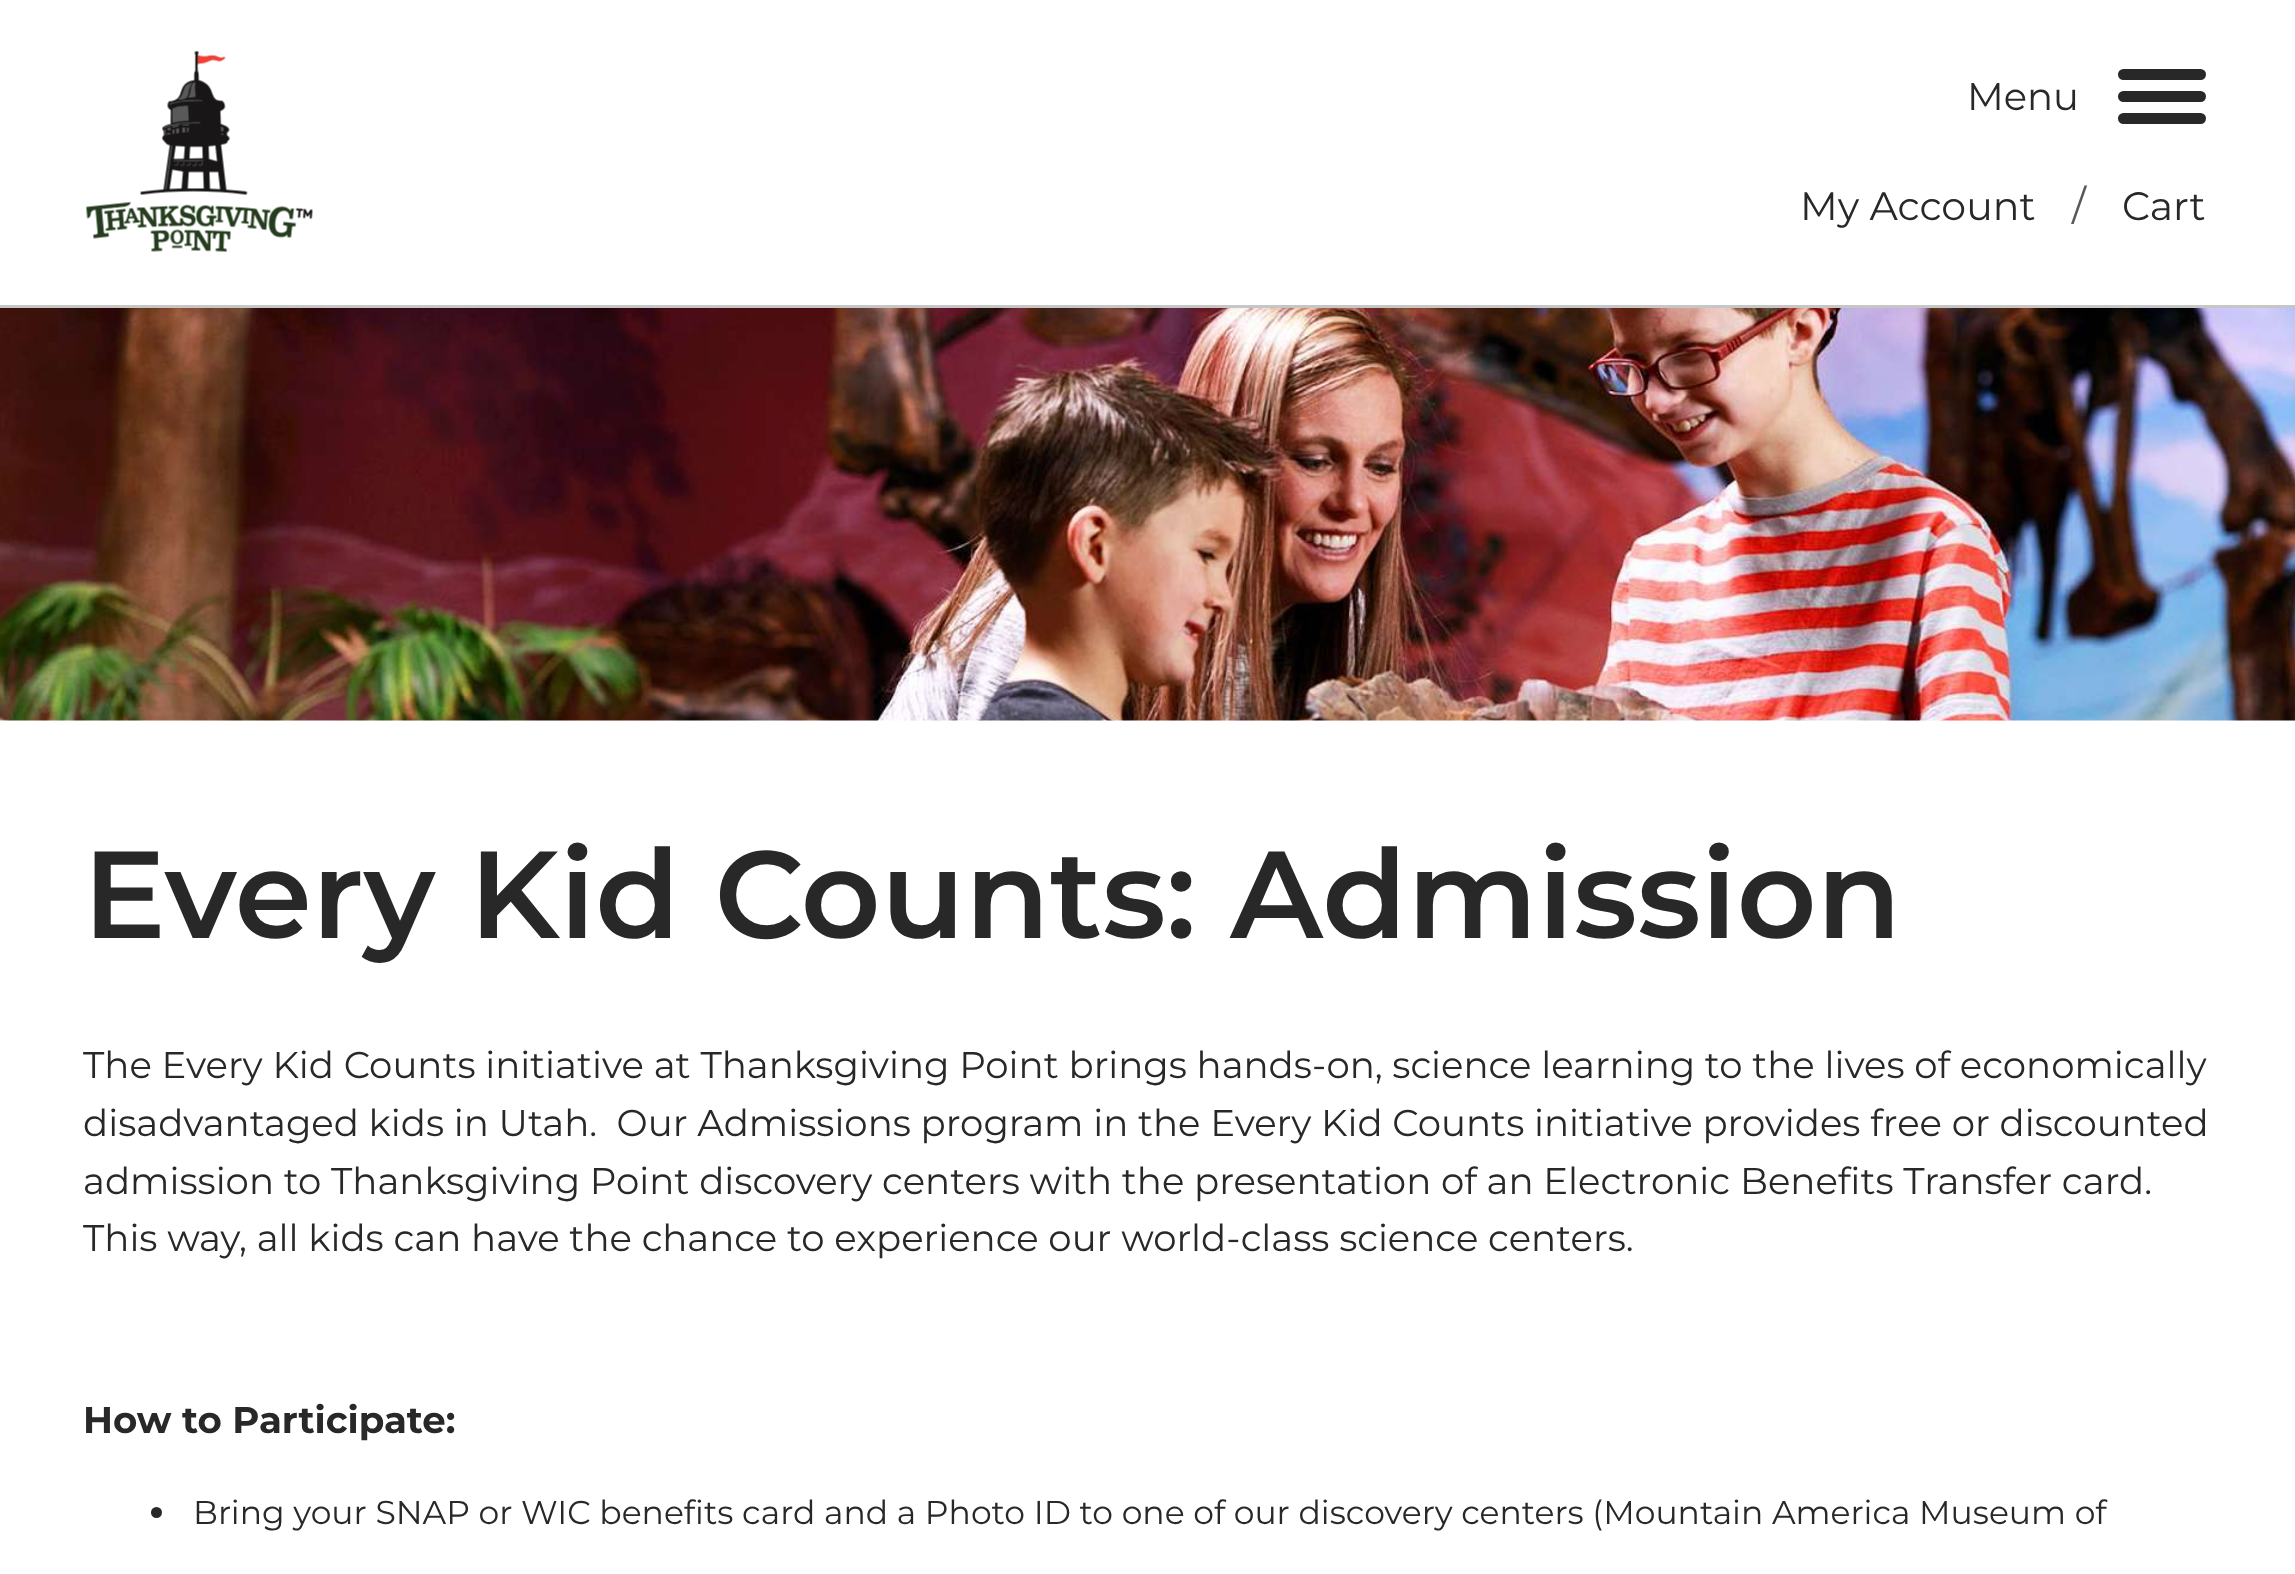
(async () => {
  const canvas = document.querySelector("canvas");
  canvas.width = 2295;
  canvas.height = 1574;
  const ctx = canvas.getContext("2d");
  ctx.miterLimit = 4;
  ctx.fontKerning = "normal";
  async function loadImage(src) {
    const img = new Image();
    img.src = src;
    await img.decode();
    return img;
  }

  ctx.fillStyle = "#ffffff";
  ctx.fillRect(0, 0, 2295, 1574);
  ctx.fillStyle = "#c6c6c6";
  ctx.fillRect(0, 305, 2295, 3);
  ctx.drawImage(await loadImage("img/1.png"), 85, 50, 228, 202);
  ctx.fillStyle = "#282828";
  ctx.beginPath();
  ctx.roundRect(2118, 69, 88, 11, 5.5);
  ctx.fill();
  ctx.beginPath();
  ctx.roundRect(2118, 91, 88, 11, 5.5);
  ctx.fill();
  ctx.beginPath();
  ctx.roundRect(2118, 113, 88, 11, 5.5);
  ctx.fill();
  ctx.drawImage(await loadImage("img/2.png"), 0, 308, 2295, 413);
  ctx.beginPath();
  ctx.arc(156.5, 1512.5, 5.5, 0, Math.PI * 2);
  ctx.fill();
  ctx.font = "38.5px Montserrat";
  ctx.fillText("Menu", 1967, 110);
  ctx.font = "39.5px Montserrat";
  ctx.fillText("My Account", 1800, 220);
  ctx.font = "41px Montserrat";
  ctx.fillStyle = "#58595b";
  ctx.fillText("/", 2072, 220);
  ctx.font = "39.5px Montserrat";
  ctx.fillStyle = "#282828";
  ctx.fillText("Cart", 2122, 220);
  ctx.font = "600 123.75px Montserrat";
  ctx.fillText("Every Kid Counts: Admission", 83, 938);
  ctx.font = "37.12px Montserrat";
  for (const [text, x, y] of [
    ["The Every Kid Counts initiative at Thanksgiving Point brings hands-on, science learning to the lives of economically", 83, 1078],
    ["disadvantaged kids in Utah.  Our Admissions program in the Every Kid Counts initiative provides free or discounted", 83, 1136],
    ["admission to Thanksgiving Point discovery centers with the presentation of an Electronic Benefits Transfer card.", 83, 1194],
    ["This way, all kids can have the chance to experience our world-class science centers.", 83, 1251],
  ]) {
    ctx.fillText(text, x, y);
  }
  ctx.font = "bold 37.12px Montserrat";
  ctx.fillText("How to Participate:", 83, 1433);
  ctx.font = "33px Montserrat";
  ctx.fillText("Bring your SNAP or WIC benefits card and a Photo ID to one of our discovery centers (Mountain America Museum of", 193, 1524);
})();
